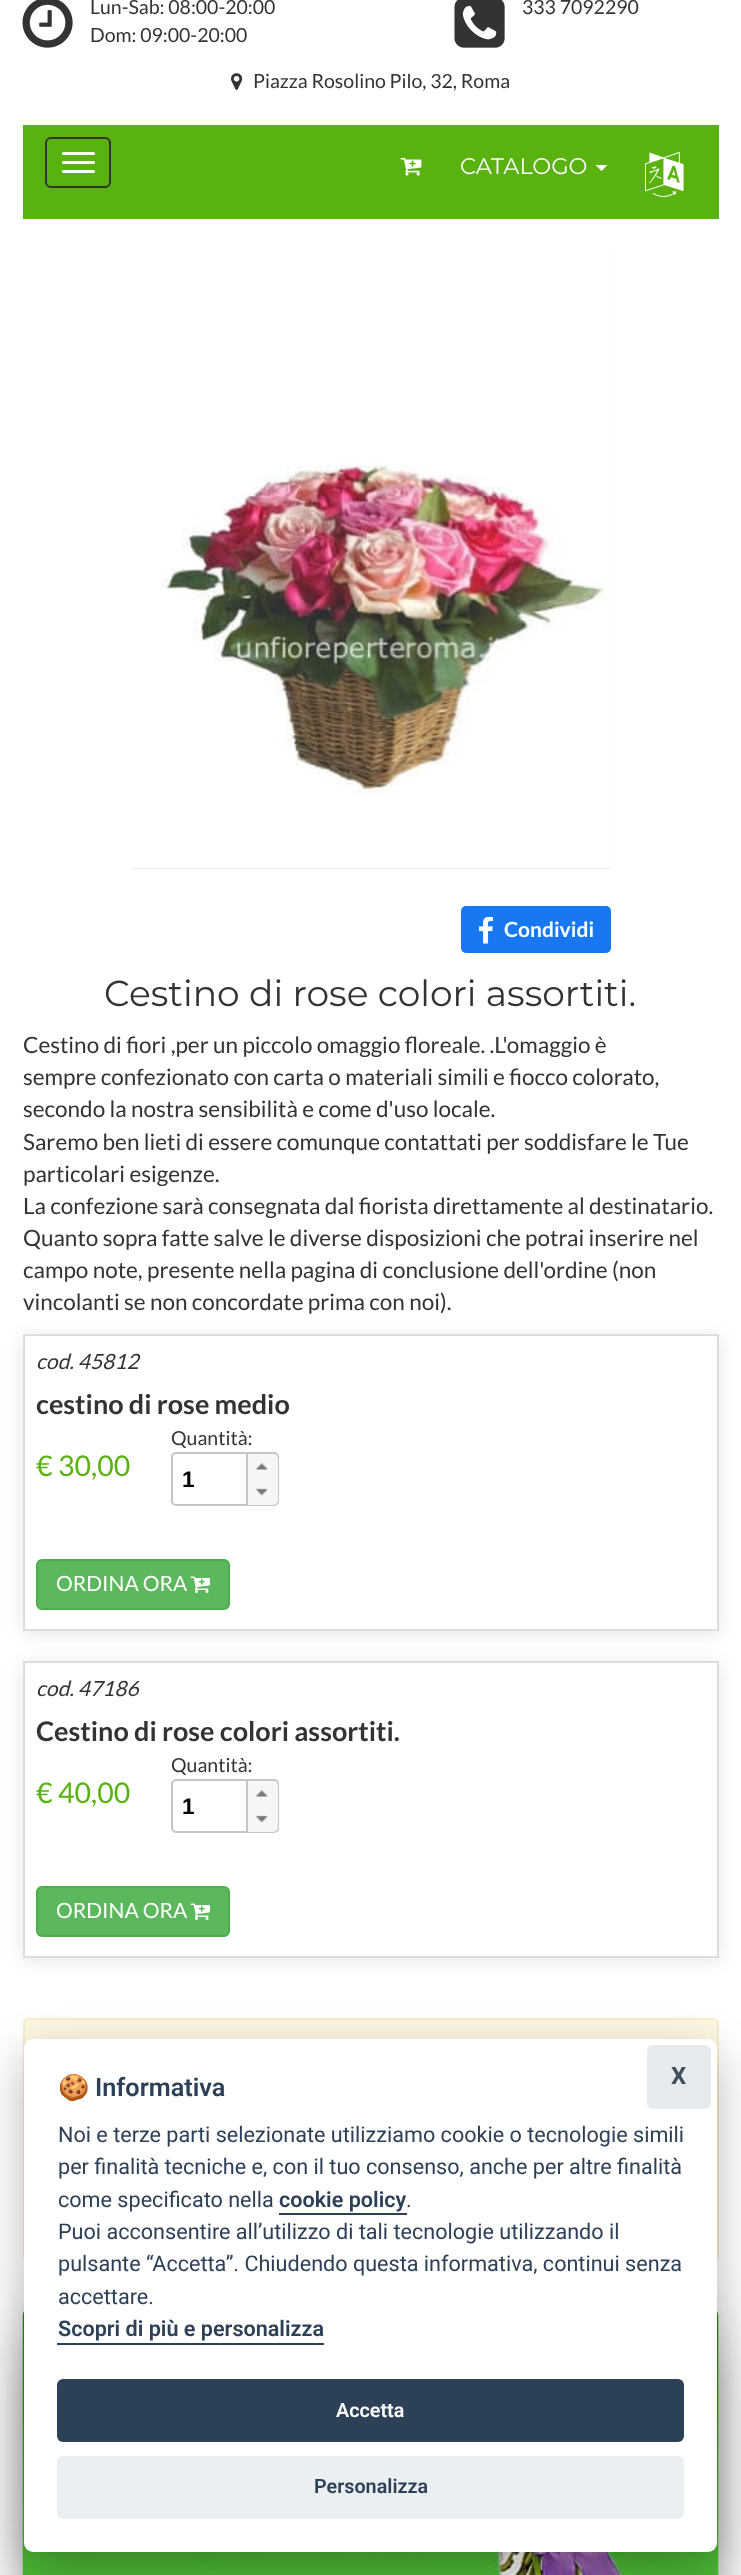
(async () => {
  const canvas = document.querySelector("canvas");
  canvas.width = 741;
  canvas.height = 2575;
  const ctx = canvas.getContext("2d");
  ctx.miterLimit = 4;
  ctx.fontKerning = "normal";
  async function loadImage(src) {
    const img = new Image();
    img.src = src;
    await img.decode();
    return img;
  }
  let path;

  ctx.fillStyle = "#ffffff";
  ctx.fillRect(0, 0, 741, 2575);
  ctx.drawImage(await loadImage("img/1.png"), 22, 0, 51, 48);
  ctx.drawImage(await loadImage("img/2.png"), 454, 0, 51, 48);
  ctx.drawImage(await loadImage("img/3.png"), 231, 73, 12, 17);
  ctx.fillStyle = "#59b210";
  ctx.fillRect(23, 125, 696, 94);
  ctx.beginPath();
  ctx.roundRect(46, 138, 64, 49, 5);
  ctx.strokeStyle = "#333333";
  ctx.lineWidth = 2;
  ctx.stroke();
  ctx.fillStyle = "#ffffff";
  ctx.beginPath();
  ctx.roundRect(62, 152, 33, 3, 1.5);
  ctx.fill();
  ctx.beginPath();
  ctx.roundRect(62, 161, 33, 3, 1.5);
  ctx.fill();
  ctx.beginPath();
  ctx.roundRect(62, 170, 33, 3, 1.5);
  ctx.fill();
  ctx.drawImage(await loadImage("img/4.png"), 400, 157, 22, 19);
  path = new Path2D("M595.5 165H607.5L601.5 171Z");
  ctx.fill(path);
  ctx.drawImage(await loadImage("img/5.png"), 645, 152, 39, 45);
  ctx.fillStyle = "#eeeeee";
  ctx.fillRect(131, 868, 480, 1);
  ctx.drawImage(await loadImage("img/6.png"), 131, 249, 479, 619);
  ctx.fillStyle = "#fbfbfb";
  ctx.fillRect(610, 249, 1, 619);
  ctx.fillStyle = "#1778f2";
  ctx.beginPath();
  ctx.roundRect(461, 906, 150, 47, 5);
  ctx.fill();
  ctx.drawImage(await loadImage("img/7.png"), 479, 917, 14, 27);
  ctx.save();
  path = new Path2D("M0 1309H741V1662H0ZM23 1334H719V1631H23Z");
  ctx.clip(path, "evenodd");
  ctx.fillStyle = "rgba(0, 0, 0, 0.1)";
  ctx.filter = "blur(9px)";
  ctx.beginPath();
  ctx.rect(23, 1337, 696, 297);
  ctx.fill();
  ctx.filter = "none";
  ctx.restore();
  ctx.strokeStyle = "#dddddd";
  ctx.strokeRect(24, 1335, 694, 295);
  ctx.beginPath();
  ctx.roundRect(172, 1453, 106, 52, 4);
  ctx.strokeStyle = "#c5c5c5";
  ctx.stroke();
  ctx.fillStyle = "#f6f6f6";
  ctx.beginPath();
  ctx.roundRect(246, 1454, 32, 25, [0, 5, 0, 0]);
  ctx.fill();
  ctx.fillStyle = "#c5c5c5";
  ctx.fillRect(246, 1454, 2, 25);
  ctx.drawImage(await loadImage("img/8.png"), 256, 1463, 12, 7);
  ctx.fillStyle = "#f6f6f6";
  ctx.beginPath();
  ctx.roundRect(246, 1479, 32, 26, [0, 0, 5, 0]);
  ctx.fill();
  ctx.fillStyle = "#c5c5c5";
  ctx.fillRect(246, 1479, 2, 26);
  ctx.drawImage(await loadImage("img/9.png"), 256, 1488, 12, 8);
  ctx.fillStyle = "#5cb85c";
  ctx.beginPath();
  ctx.roundRect(37, 1560, 192, 49, 5);
  ctx.fill();
  ctx.strokeStyle = "#4cae4c";
  ctx.stroke();
  ctx.drawImage(await loadImage("img/10.png"), 190, 1576, 20, 17);
  ctx.save();
  path = new Path2D("M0 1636H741V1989H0ZM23 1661H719V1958H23Z");
  ctx.clip(path, "evenodd");
  ctx.fillStyle = "rgba(0, 0, 0, 0.1)";
  ctx.filter = "blur(9px)";
  ctx.beginPath();
  ctx.rect(23, 1664, 696, 297);
  ctx.fill();
  ctx.filter = "none";
  ctx.restore();
  ctx.strokeStyle = "#dddddd";
  ctx.strokeRect(24, 1662, 694, 295);
  ctx.beginPath();
  ctx.roundRect(172, 1780, 106, 52, 4);
  ctx.strokeStyle = "#c5c5c5";
  ctx.stroke();
  ctx.fillStyle = "#f6f6f6";
  ctx.beginPath();
  ctx.roundRect(246, 1781, 32, 25, [0, 5, 0, 0]);
  ctx.fill();
  ctx.fillStyle = "#c5c5c5";
  ctx.fillRect(246, 1781, 2, 25);
  ctx.drawImage(await loadImage("img/8.png"), 256, 1790, 12, 7);
  ctx.fillStyle = "#f6f6f6";
  ctx.beginPath();
  ctx.roundRect(246, 1806, 32, 26, [0, 0, 5, 0]);
  ctx.fill();
  ctx.fillStyle = "#c5c5c5";
  ctx.fillRect(246, 1806, 2, 26);
  ctx.drawImage(await loadImage("img/9.png"), 256, 1815, 12, 8);
  ctx.fillStyle = "#5cb85c";
  ctx.beginPath();
  ctx.roundRect(37, 1887, 192, 49, 5);
  ctx.fill();
  ctx.strokeStyle = "#4cae4c";
  ctx.stroke();
  ctx.drawImage(await loadImage("img/10.png"), 190, 1903, 20, 17);
  ctx.fillStyle = "#fcf8e3";
  ctx.beginPath();
  ctx.roundRect(24, 2019, 694, 241, 5);
  ctx.fill();
  ctx.strokeStyle = "#faebcc";
  ctx.stroke();
  ctx.fillStyle = "#262626";
  ctx.filter = "blur(36px)";
  ctx.beginPath();
  ctx.rect(50, 2333, 642, 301);
  ctx.fill();
  ctx.filter = "none";
  ctx.drawImage(await loadImage("img/11.png"), 22, 2311, 697, 264);
  ctx.fillStyle = "rgba(2, 2, 3, 0.28)";
  ctx.filter = "blur(22.5px)";
  ctx.beginPath();
  ctx.roundRect(24, 2054, 693, 513, 9);
  ctx.fill();
  ctx.filter = "none";
  ctx.fillStyle = "#ffffff";
  ctx.beginPath();
  ctx.roundRect(24, 2039, 693, 513, 9);
  ctx.fill();
  ctx.fillStyle = "#e5ebef";
  ctx.beginPath();
  ctx.roundRect(647, 2045, 64, 64, 6);
  ctx.fill();
  ctx.fillStyle = "#2d4156";
  ctx.fillRect(279, 2213, 128, 2);
  ctx.fillRect(57, 2343, 267, 2);
  ctx.beginPath();
  ctx.roundRect(57, 2379, 627, 63, 6);
  ctx.fill();
  ctx.fillStyle = "#eaeff2";
  ctx.beginPath();
  ctx.roundRect(57, 2456, 627, 63, 6);
  ctx.fill();
  ctx.font = "19.5px Lato";
  ctx.fillStyle = "#333333";
  for (const [text, x, y] of [
    ["Lun-Sab: 08:00-20:00", 90, 14],
    ["Dom: 09:00-20:00", 90, 42],
    ["333 7092290", 522, 14],
    ["Piazza Rosolino Pilo, 32, Roma", 253, 88],
  ]) {
    ctx.fillText(text, x, y);
  }
  ctx.font = "100 22.5px Montserrat";
  ctx.fillStyle = "#ffffff";
  ctx.fillText("CATALOGO", 460, 174);
  ctx.font = "bold 21px Lato";
  ctx.fillText("Condividi", 504, 937);
  ctx.font = "100 36px Montserrat";
  ctx.fillStyle = "#333333";
  ctx.fillText("Cestino di rose colori assortiti.", 104, 1006);
  ctx.font = "22.5px Lato";
  for (const [text, x, y] of [
    ["Cestino di fiori ,per un piccolo omaggio floreale. .L'omaggio è", 23, 1053],
    ["sempre confezionato con carta o materiali simili e fiocco colorato,", 23, 1085],
    ["secondo la nostra sensibilità e come d'uso locale.", 23, 1117],
    ["Saremo ben lieti di essere comunque contattati per soddisfare le Tue", 23, 1150],
    ["particolari esigenze.", 23, 1182],
    ["La confezione sarà consegnata dal fiorista direttamente al destinatario.", 23, 1214],
    ["Quanto sopra fatte salve le diverse disposizioni che potrai inserire nel", 23, 1246],
    ["campo note, presente nella pagina di conclusione dell'ordine (non", 23, 1278],
    ["vincolanti se non concordate prima con noi).", 23, 1310],
  ]) {
    ctx.fillText(text, x, y);
  }
  ctx.font = "italic 21px Lato";
  ctx.fillText("cod. 45812", 36, 1369);
  ctx.font = "bold 27px Lato";
  ctx.fillText("cestino di rose medio", 36, 1414);
  ctx.font = "28.5px Lato";
  ctx.fillStyle = "#59b210";
  ctx.fillText("€ 30,00", 36, 1476);
  ctx.font = "19.5px Lato";
  ctx.fillStyle = "#333333";
  ctx.fillText("Quantità:", 171, 1445);
  ctx.font = "bold 22.5px Liberation Sans";
  ctx.fillStyle = "#000000";
  ctx.fillText("1", 182, 1487);
  ctx.font = "21px Lato";
  ctx.fillStyle = "#ffffff";
  ctx.fillText("ORDINA ORA", 56, 1591);
  ctx.font = "italic 21px Lato";
  ctx.fillStyle = "#333333";
  ctx.fillText("cod. 47186", 36, 1696);
  ctx.font = "bold 27px Lato";
  ctx.fillText("Cestino di rose colori assortiti.", 36, 1741);
  ctx.font = "28.5px Lato";
  ctx.fillStyle = "#59b210";
  ctx.fillText("€ 40,00", 36, 1803);
  ctx.font = "19.5px Lato";
  ctx.fillStyle = "#333333";
  ctx.fillText("Quantità:", 171, 1772);
  ctx.font = "bold 22.5px Liberation Sans";
  ctx.fillStyle = "#000000";
  ctx.fillText("1", 182, 1814);
  ctx.font = "21px Lato";
  ctx.fillStyle = "#ffffff";
  ctx.fillText("ORDINA ORA", 56, 1918);
  ctx.font = "bold 24px Roboto";
  ctx.fillStyle = "#40505a";
  ctx.fillText("X", 671, 2084);
  ctx.font = "bold 25.25px Noto Color Emoji";
  ctx.fillStyle = "#2d4156";
  ctx.fillText("🍪", 58, 2096);
  ctx.font = "600 25.25px Roboto";
  ctx.fillText("Informativa", 95, 2096);
  ctx.font = "21.6px Roboto";
  for (const [text, x, y] of [
    ["Noi e terze parti selezionate utilizziamo cookie o tecnologie simili", 58, 2142],
    ["per finalità tecniche e, con il tuo consenso, anche per altre finalità", 58, 2174],
    ["come specificato nella", 58, 2207],
  ]) {
    ctx.fillText(text, x, y);
  }
  ctx.font = "600 21.6px Roboto";
  ctx.fillText("cookie policy", 279, 2207);
  ctx.font = "21.6px Roboto";
  for (const [text, x, y] of [
    [".", 406, 2207],
    ["Puoi acconsentire all’utilizzo di tali tecnologie utilizzando il", 58, 2239],
    ["pulsante “Accetta”. Chiudendo questa informativa, continui senza", 58, 2271],
    ["accettare.", 58, 2304],
  ]) {
    ctx.fillText(text, x, y);
  }
  ctx.font = "600 21.6px Roboto";
  ctx.fillText("Scopri di più e personalizza", 58, 2336);
  ctx.font = "600 19.75px Roboto";
  ctx.fillStyle = "#ffffff";
  ctx.fillText("Accetta", 336, 2417);
  ctx.fillStyle = "#2d4156";
  ctx.fillText("Personalizza", 314, 2493);
})();
